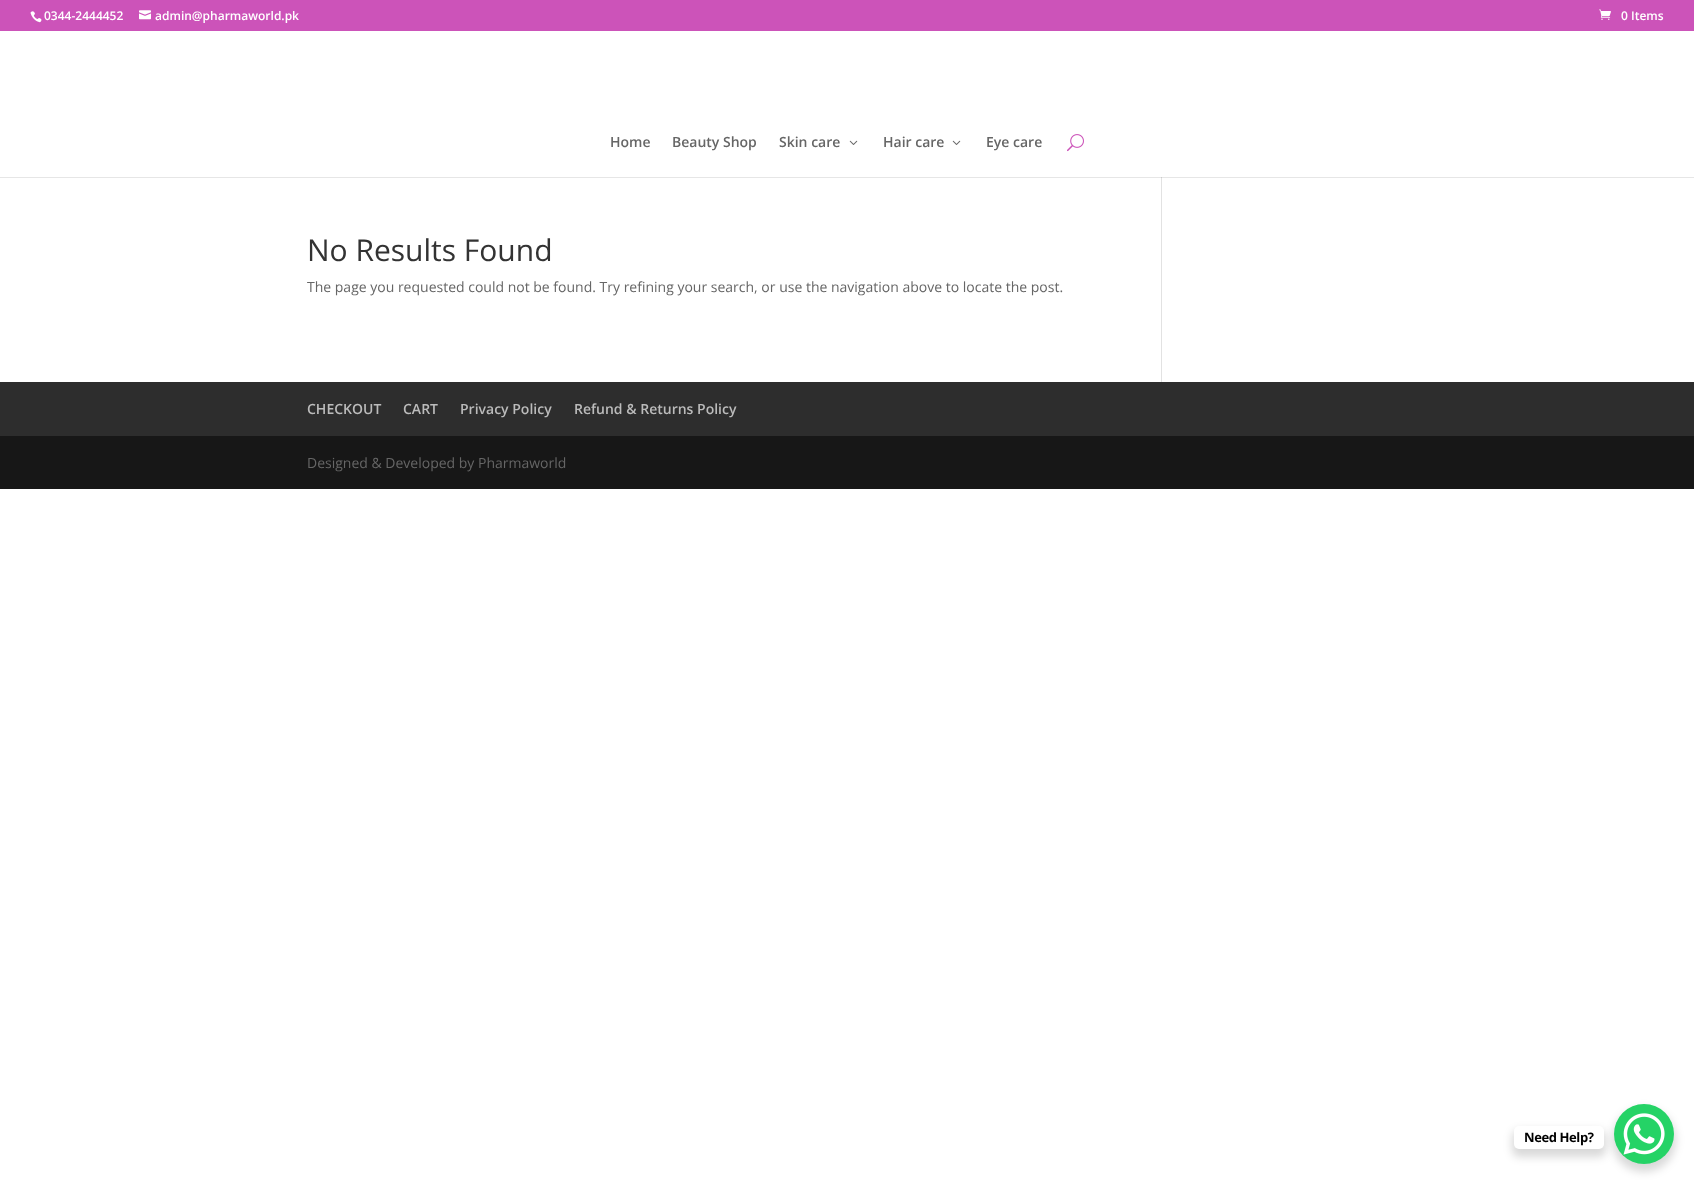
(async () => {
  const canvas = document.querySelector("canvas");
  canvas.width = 1694;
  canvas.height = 1184;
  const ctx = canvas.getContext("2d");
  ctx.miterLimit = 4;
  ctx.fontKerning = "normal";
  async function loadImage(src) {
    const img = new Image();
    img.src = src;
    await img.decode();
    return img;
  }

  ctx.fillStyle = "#ffffff";
  ctx.fillRect(0, 0, 1694, 1184);
  ctx.fillStyle = "#e6e6e6";
  ctx.fillRect(0, 177, 1694, 1);
  ctx.fillStyle = "#cc53b9";
  ctx.fillRect(0, 0, 1694, 31);
  ctx.drawImage(await loadImage("img/1.png"), 30, 11, 12, 12);
  ctx.drawImage(await loadImage("img/2.png"), 139, 10, 12, 10);
  ctx.drawImage(await loadImage("img/3.png"), 1599, 9, 12, 11);
  ctx.drawImage(await loadImage("img/4.png"), 849, 140, 9, 5);
  ctx.drawImage(await loadImage("img/4.png"), 952, 140, 9, 5);
  ctx.drawImage(await loadImage("img/5.png"), 1067, 134, 17, 18);
  for (const [x, y, w, h, color] of [
    [1161, 177, 1, 205, "#e2e2e2"],
    [1161, 177, 1, 1, "#cbcbcb"],
    [0, 382, 1694, 54, "#2d2d2d"],
    [0, 436, 1694, 53, "#171717"],
  ]) {
    ctx.fillStyle = color;
    ctx.fillRect(x, y, w, h);
  }
  ctx.fillStyle = "rgba(0, 0, 0, 0.15)";
  ctx.filter = "blur(4px)";
  ctx.beginPath();
  ctx.roundRect(1612, 1108, 64, 64, 32);
  ctx.fill();
  ctx.filter = "none";
  ctx.fillStyle = "#25d366";
  ctx.beginPath();
  ctx.arc(1644, 1134, 30, 0, Math.PI * 2);
  ctx.fill();
  ctx.fillStyle = "rgba(0, 0, 0, 0.15)";
  ctx.filter = "blur(4px)";
  ctx.beginPath();
  ctx.roundRect(1512, 1130, 94, 27, 7);
  ctx.fill();
  ctx.filter = "none";
  ctx.fillStyle = "#ffffff";
  ctx.beginPath();
  ctx.roundRect(1514, 1126, 90, 23, 5);
  ctx.fill();
  ctx.drawImage(await loadImage("img/6.png"), 1623, 1113, 42, 42);
  ctx.font = "600 12px Open Sans";
  for (const [text, x, y] of [
    ["0344-2444452", 44, 20],
    ["admin@pharmaworld.pk", 155, 20],
    ["0 Items", 1621, 20],
  ]) {
    ctx.fillText(text, x, y);
  }
  ctx.font = "600 14px Open Sans";
  ctx.fillStyle = "#666666";
  for (const [text, x, y] of [
    ["Home", 610, 147],
    ["Beauty Shop", 672, 147],
    ["Skin care", 779, 147],
    ["Hair care", 883, 147],
    ["Eye care", 986, 147],
  ]) {
    ctx.fillText(text, x, y);
  }
  ctx.font = "30px Open Sans";
  ctx.fillStyle = "#333333";
  ctx.fillText("No Results Found", 307, 261);
  ctx.font = "14px Open Sans";
  ctx.fillStyle = "#666666";
  ctx.fillText("The page you requested could not be found. Try refining your search, or use the navigation above to locate the post.", 307, 292);
  ctx.font = "600 14px Open Sans";
  ctx.fillStyle = "#bbbbbb";
  for (const [text, x, y] of [
    ["CHECKOUT", 307, 414],
    ["CART", 403, 414],
    ["Privacy Policy", 460, 414],
    ["Refund & Returns Policy", 574, 414],
  ]) {
    ctx.fillText(text, x, y);
  }
  ctx.font = "14px Open Sans";
  ctx.fillStyle = "#666666";
  ctx.fillText("Designed & Developed by Pharmaworld", 307, 468);
  ctx.letterSpacing = "-0.4px";
  ctx.font = "bold 13px Open Sans";
  ctx.fillStyle = "#000000";
  ctx.fillText("Need Help?", 1524, 1142);
})();
